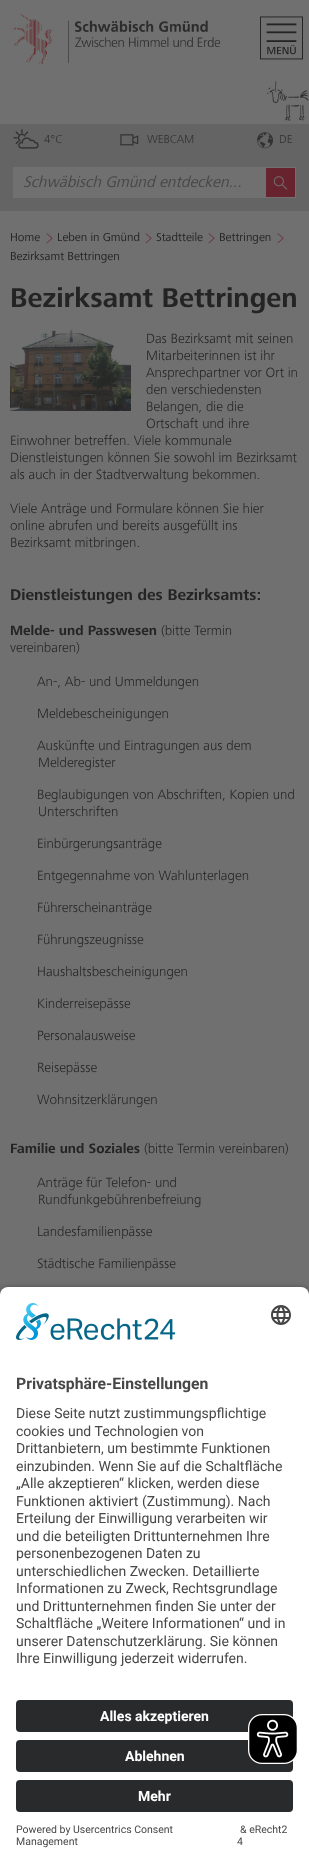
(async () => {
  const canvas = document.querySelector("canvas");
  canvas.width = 309;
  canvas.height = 1864;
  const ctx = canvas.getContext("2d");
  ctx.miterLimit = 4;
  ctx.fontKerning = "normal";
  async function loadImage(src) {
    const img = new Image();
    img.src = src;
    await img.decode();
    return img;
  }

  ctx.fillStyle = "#707070";
  ctx.fillRect(0, 0, 309, 1864);
  ctx.drawImage(await loadImage("img/1.png"), 12, 14, 209, 51);
  ctx.drawImage(await loadImage("img/2.png"), 260, 16, 43, 44);
  ctx.drawImage(await loadImage("img/3.png"), 267, 81, 42, 40);
  ctx.fillStyle = "#646464";
  ctx.fillRect(0, 124, 309, 87);
  ctx.drawImage(await loadImage("img/4.png"), 13, 129, 26, 20);
  ctx.drawImage(await loadImage("img/5.png"), 120, 134, 19, 12);
  ctx.drawImage(await loadImage("img/6.png"), 257, 132, 16, 17);
  ctx.fillStyle = "#707070";
  ctx.fillRect(13, 167, 283, 31);
  ctx.fillStyle = "#67242f";
  ctx.fillRect(266, 168, 29, 29);
  ctx.drawImage(await loadImage("img/7.png"), 273, 176, 15, 14);
  ctx.drawImage(await loadImage("img/8.png"), 46, 233, 7, 11);
  ctx.drawImage(await loadImage("img/8.png"), 145, 233, 7, 11);
  ctx.drawImage(await loadImage("img/8.png"), 208, 233, 7, 11);
  ctx.drawImage(await loadImage("img/8.png"), 277, 233, 7, 11);
  ctx.drawImage(await loadImage("img/9.png"), 10, 330, 121, 81);
  ctx.fillStyle = "rgba(0, 0, 0, 0.8)";
  ctx.filter = "blur(3.5px)";
  ctx.beginPath();
  ctx.roundRect(0, 1290, 309, 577, 8);
  ctx.fill();
  ctx.filter = "none";
  ctx.fillStyle = "#ffffff";
  ctx.beginPath();
  ctx.roundRect(0, 1287, 309, 401, [8, 8, 0, 0]);
  ctx.fill();
  ctx.drawImage(await loadImage("img/10.png"), 16, 1303, 160, 37);
  ctx.drawImage(await loadImage("img/11.png"), 271, 1305, 20, 20);
  ctx.fillRect(0, 1688, 309, 176);
  ctx.fillStyle = "#292a2b";
  ctx.beginPath();
  ctx.roundRect(16, 1700, 277, 32, 4);
  ctx.fill();
  ctx.beginPath();
  ctx.roundRect(16, 1740, 277, 32, 4);
  ctx.fill();
  ctx.beginPath();
  ctx.roundRect(16, 1780, 277, 32, 4);
  ctx.fill();
  ctx.drawImage(await loadImage("img/12.png"), 248, 1714, 50, 50);
  ctx.font = "300 12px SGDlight";
  ctx.fillStyle = "#313131";
  for (const [text, x, y] of [
    ["4°C", 44, 143],
    ["WEBCAM", 147, 143],
    ["DE", 279, 143],
  ]) {
    ctx.fillText(text, x, y);
  }
  ctx.font = "italic 16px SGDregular";
  ctx.fillStyle = "#474747";
  ctx.fillText("Schwäbisch Gmünd entdecken...", 23, 187);
  ctx.font = "12px SGDregular";
  ctx.fillStyle = "#242424";
  for (const [text, x, y] of [
    ["Home", 10, 241],
    ["Leben in Gmünd", 57, 241],
    ["Stadtteile", 156, 241],
    ["Bettringen", 219, 241],
    ["Bezirksamt Bettringen", 10, 260],
  ]) {
    ctx.fillText(text, x, y);
  }
  ctx.font = "bold 28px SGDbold";
  ctx.fillText("Bezirksamt Bettringen", 10, 307);
  ctx.font = "300 14px SGDlight";
  for (const [text, x, y] of [
    ["Das Bezirksamt mit seinen", 146, 343],
    ["Mitarbeiterinnen ist ihr", 146, 360],
    ["Ansprechpartner vor Ort in", 146, 377],
    ["den verschiedensten", 146, 394],
    ["Belangen, die die", 146, 411],
    ["Ortschaft und ihre", 146, 428],
    ["Einwohner betreffen. Viele kommunale", 10, 445],
    ["Dienstleistungen können Sie sowohl im Bezirksamt", 10, 462],
    ["als auch in der Stadtverwaltung bekommen.", 10, 479],
    ["Viele Anträge und Formulare können Sie hier", 10, 513],
    ["online abrufen und bereits ausgefüllt ins", 10, 530],
    ["Bezirksamt mitbringen.", 10, 547],
  ]) {
    ctx.fillText(text, x, y);
  }
  ctx.font = "bold 16px SGDbold";
  ctx.fillText("Dienstleistungen des Bezirksamts:", 10, 600);
  ctx.font = "bold 14px SGDbold";
  ctx.fillText("Melde- und Passwesen", 10, 635);
  ctx.font = "300 14px SGDlight";
  for (const [text, x, y] of [
    ["(bitte Termin", 161, 635],
    ["vereinbaren)", 10, 652],
    ["An-, Ab- und Ummeldungen", 37, 686],
    ["Meldebescheinigungen", 37, 718],
    ["Auskünfte und Eintragungen aus dem", 37, 750],
    ["Melderegister", 38, 767],
    ["Beglaubigungen von Abschriften, Kopien und", 37, 799],
    ["Unterschriften", 38, 816],
    ["Einbürgerungsanträge", 37, 848],
    ["Entgegennahme von Wahlunterlagen", 37, 880],
    ["Führerscheinanträge", 37, 912],
    ["Führungszeugnisse", 37, 944],
    ["Haushaltsbescheinigungen", 37, 976],
    ["Kinderreisepässe", 37, 1008],
    ["Personalausweise", 37, 1040],
    ["Reisepässe", 37, 1072],
    ["Wohnsitzerklärungen", 37, 1104],
  ]) {
    ctx.fillText(text, x, y);
  }
  ctx.font = "bold 14px SGDbold";
  ctx.fillText("Familie und Soziales", 10, 1153);
  ctx.font = "300 14px SGDlight";
  for (const [text, x, y] of [
    ["(bitte Termin vereinbaren)", 144, 1153],
    ["Anträge für Telefon- und", 37, 1187],
    ["Rundfunkgebührenbefreiung", 38, 1204],
    ["Landesfamilienpässe", 37, 1236],
    ["Städtische Familienpässe", 37, 1268],
  ]) {
    ctx.fillText(text, x, y);
  }
  ctx.font = "bold 15.75px Roboto";
  ctx.fillStyle = "#474747";
  ctx.fillText("Privatsphäre-Einstellungen", 16, 1389);
  ctx.font = "14px Roboto";
  for (const [text, x, y] of [
    ["Diese Seite nutzt zustimmungspflichtige", 16, 1418],
    ["cookies und Technologien von", 16, 1436],
    ["Drittanbietern, um bestimmte Funktionen", 16, 1453],
    ["einzubinden. Wenn Sie auf die Schaltfläche", 16, 1471],
    ["„Alle akzeptieren“ klicken, werden diese", 16, 1488],
    ["Funktionen aktiviert (Zustimmung). Nach", 16, 1506],
    ["Erteilung der Einwilligung verarbeiten wir", 16, 1523],
    ["und die beteiligten Drittunternehmen Ihre", 16, 1541],
    ["personenbezogenen Daten zu", 16, 1558],
    ["unterschiedlichen Zwecken. Detaillierte", 16, 1576],
    ["Informationen zu Zweck, Rechtsgrundlage", 16, 1593],
    ["und Drittunternehmen finden Sie unter der", 16, 1611],
    ["Schaltfläche „Weitere Informationen“ und in", 16, 1628],
    ["unserer Datenschutzerklärung. Sie können", 16, 1646],
    ["Ihre Einwilligung jederzeit widerrufen.", 16, 1663],
  ]) {
    ctx.fillText(text, x, y);
  }
  ctx.font = "bold 14px Roboto";
  ctx.fillStyle = "#ffffff";
  for (const [text, x, y] of [
    ["Alles akzeptieren", 100, 1721],
    ["Ablehnen", 125, 1761],
    ["Mehr", 138, 1801],
  ]) {
    ctx.fillText(text, x, y);
  }
  ctx.font = "10.5px Roboto";
  ctx.fillStyle = "#474747";
  for (const [text, x, y] of [
    ["Powered by Usercentrics Consent", 16, 1833],
    ["Management", 16, 1845],
    ["& eRecht2", 240, 1833],
    ["4", 237, 1845],
  ]) {
    ctx.fillText(text, x, y);
  }
})();
